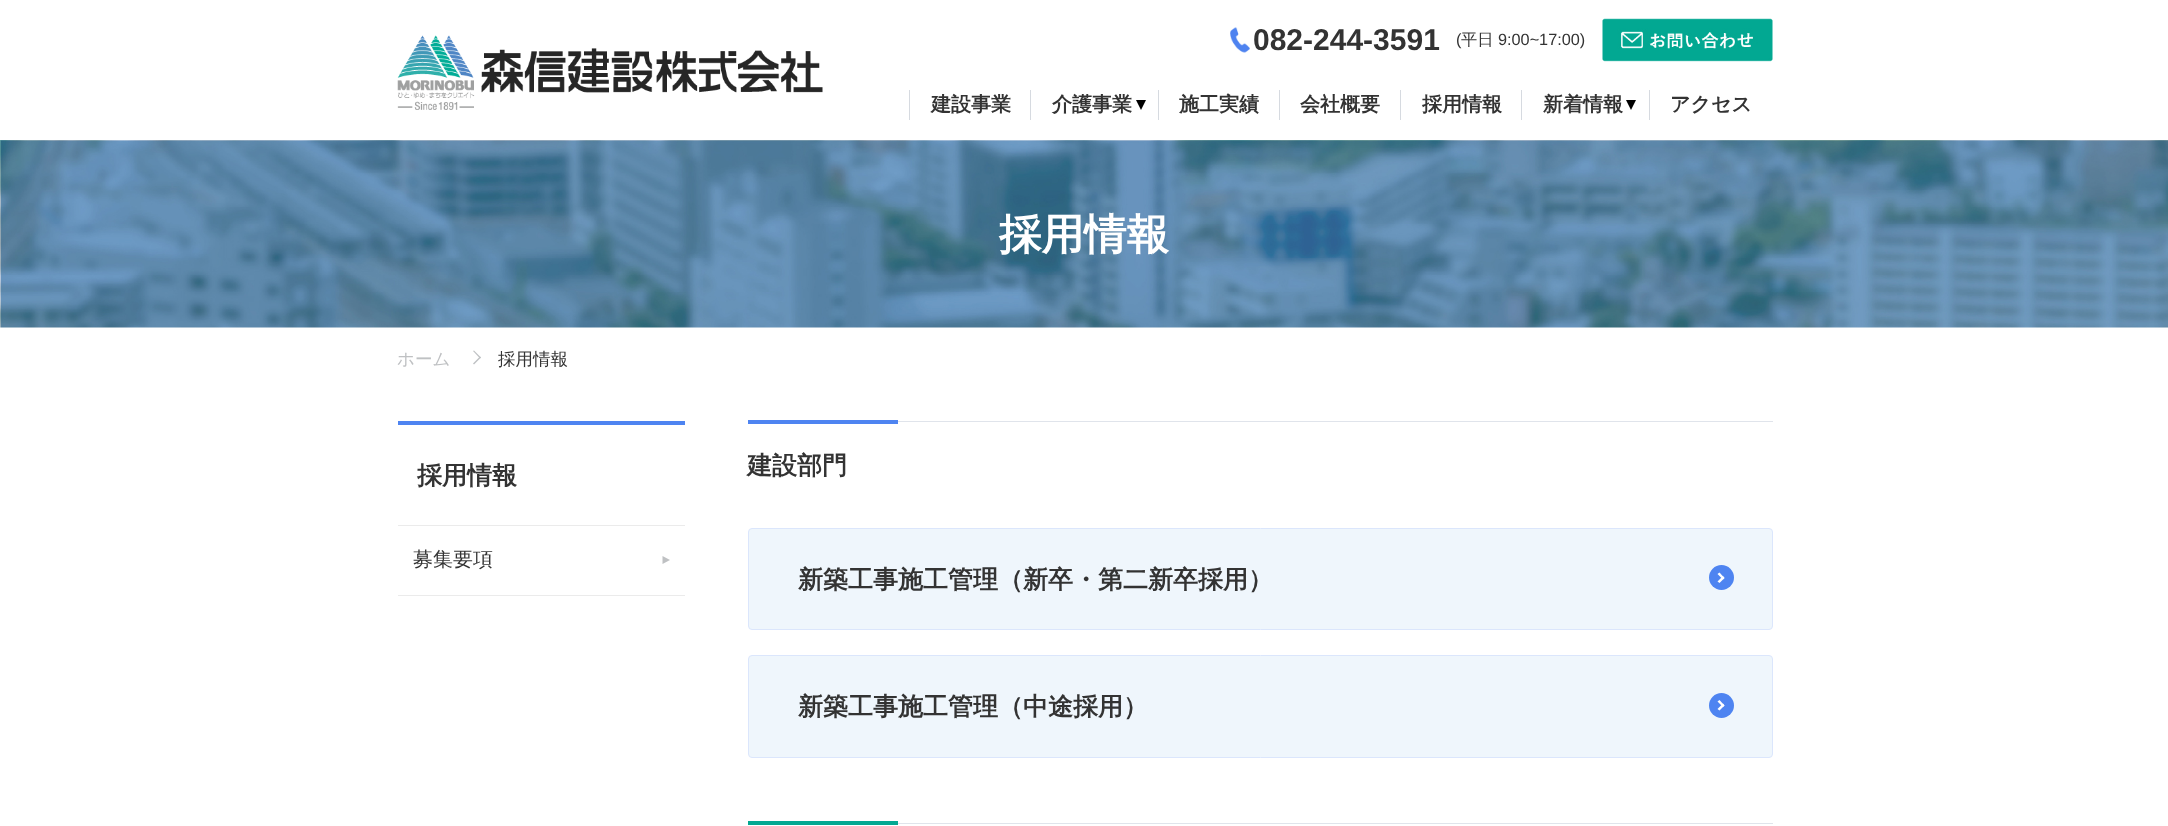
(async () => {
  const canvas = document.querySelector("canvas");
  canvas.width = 2168;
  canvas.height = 826;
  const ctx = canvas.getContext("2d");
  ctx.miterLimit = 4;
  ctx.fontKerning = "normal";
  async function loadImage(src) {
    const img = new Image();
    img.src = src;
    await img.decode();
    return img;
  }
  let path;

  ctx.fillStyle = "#ffffff";
  ctx.fillRect(0, 0, 2168, 826);
  ctx.drawImage(await loadImage("img/1.png"), 397, 35, 426, 75);
  ctx.drawImage(await loadImage("img/2.png"), 1230, 27, 20, 26);
  ctx.drawImage(await loadImage("img/3.png"), 1602, 18, 171, 44);
  ctx.fillStyle = "#d6dae0";
  ctx.fillRect(909, 90, 1, 30);
  ctx.fillRect(1030, 90, 1, 30);
  ctx.fillStyle = "#000000";
  path = new Path2D("M1136 100H1146L1141 110Z");
  ctx.fill(path);
  for (const [x, y, w, h, color] of [
    [1158, 90, 1, 30, "#d6dae0"],
    [1279, 90, 1, 30, "#d6dae0"],
    [1400, 90, 1, 30, "#d6dae0"],
    [1521, 90, 1, 30, "#d6dae0"],
  ]) {
    ctx.fillStyle = color;
    ctx.fillRect(x, y, w, h);
  }
  ctx.fillStyle = "#000000";
  path = new Path2D("M1626 100H1636L1631 110Z");
  ctx.fill(path);
  ctx.fillStyle = "#d6dae0";
  ctx.fillRect(1649, 90, 1, 30);
  ctx.drawImage(await loadImage("img/4.png"), 0, 140, 2168, 188);
  ctx.fillStyle = "#bfc1c3";
  path = new Path2D("M474 350.5L481 357.5L480 358.5L473 351Z");
  ctx.fill(path);
  path = new Path2D("M480 356.5L481 357.5L474 364.5L473 363.5Z");
  ctx.fill(path);
  for (const [x, y, w, h, color] of [
    [398, 421, 287, 4, "#4e84f1"],
    [398, 525, 287, 1, "#ebebeb"],
    [398, 595, 287, 1, "#ebebeb"],
  ]) {
    ctx.fillStyle = color;
    ctx.fillRect(x, y, w, h);
  }
  ctx.fillStyle = "#bfc1c3";
  path = new Path2D("M662.5 564V556L670 560Z");
  ctx.fill(path);
  ctx.fillStyle = "#e0e4eb";
  ctx.fillRect(898, 421, 875, 1);
  ctx.fillStyle = "#4e84f1";
  ctx.fillRect(748, 420, 150, 4);
  ctx.fillStyle = "#eff6fc";
  ctx.beginPath();
  ctx.roundRect(748.5, 528.5, 1024, 101, 3.5);
  ctx.fill();
  ctx.strokeStyle = "#dbe6fc";
  ctx.stroke();
  ctx.fillStyle = "#4e84f1";
  ctx.beginPath();
  ctx.arc(1721.5, 577.5, 12.5, 0, Math.PI * 2);
  ctx.fill();
  ctx.fillStyle = "#ffffff";
  path = new Path2D("M1719.5 572.5L1724.5 578L1723 579.5L1717.5 574Z");
  ctx.fill(path);
  path = new Path2D("M1723 576L1724.5 578L1719.5 583L1717.5 581.5Z");
  ctx.fill(path);
  ctx.fillStyle = "#eff6fc";
  ctx.beginPath();
  ctx.roundRect(748.5, 655.5, 1024, 102, 3.5);
  ctx.fill();
  ctx.stroke();
  ctx.fillStyle = "#4e84f1";
  ctx.beginPath();
  ctx.arc(1721.5, 705.5, 12.5, 0, Math.PI * 2);
  ctx.fill();
  ctx.fillStyle = "#ffffff";
  path = new Path2D("M1719.5 700L1724.5 705.5L1723 707L1717.5 701.5Z");
  ctx.fill(path);
  path = new Path2D("M1723 703.5L1724.5 705.5L1719.5 710.5L1717.5 709Z");
  ctx.fill(path);
  ctx.fillStyle = "#e0e4eb";
  ctx.fillRect(898, 823, 875, 1);
  ctx.fillStyle = "#03a892";
  ctx.fillRect(748, 821, 150, 4);
  ctx.font = "bold 30px Liberation Sans";
  ctx.fillStyle = "#333333";
  ctx.fillText("082-244-3591", 1253, 50);
  ctx.font = "16.25px Liberation Sans";
  ctx.fillText("(", 1456, 45);
  ctx.font = "500 16.25px WenQuanYi Zen Hei";
  ctx.fillText("平日", 1461, 45);
  ctx.font = "16.25px Liberation Sans";
  ctx.fillText("9:00~17:00)", 1498, 45);
  ctx.font = "bold 20px WenQuanYi Zen Hei";
  for (const [text, x, y] of [
    ["建設事業", 931, 111],
    ["介護事業", 1052, 111],
    ["施工実績", 1179, 111],
    ["会社概要", 1300, 111],
    ["採用情報", 1422, 111],
    ["新着情報", 1543, 111],
    ["アクセス", 1670, 111],
  ]) {
    ctx.fillText(text, x, y);
  }
  ctx.font = "bold 42.5px WenQuanYi Zen Hei";
  ctx.fillStyle = "#ffffff";
  ctx.fillText("採用情報", 999, 249);
  ctx.font = "500 17.5px WenQuanYi Zen Hei";
  ctx.fillStyle = "#bfc1c3";
  ctx.fillText("ホーム", 397, 365);
  ctx.fillStyle = "#333333";
  ctx.fillText("採用情報", 498, 365);
  ctx.font = "bold 25px WenQuanYi Zen Hei";
  ctx.fillText("採用情報", 417, 484);
  ctx.font = "500 20px WenQuanYi Zen Hei";
  ctx.fillText("募集要項", 413, 566);
  ctx.font = "bold 25px WenQuanYi Zen Hei";
  for (const [text, x, y] of [
    ["建設部門", 747, 474],
    ["新築工事施工管理（新卒・第二新卒採用）", 798, 588],
    ["新築工事施工管理（中途採用）", 798, 715],
  ]) {
    ctx.fillText(text, x, y);
  }
})();
